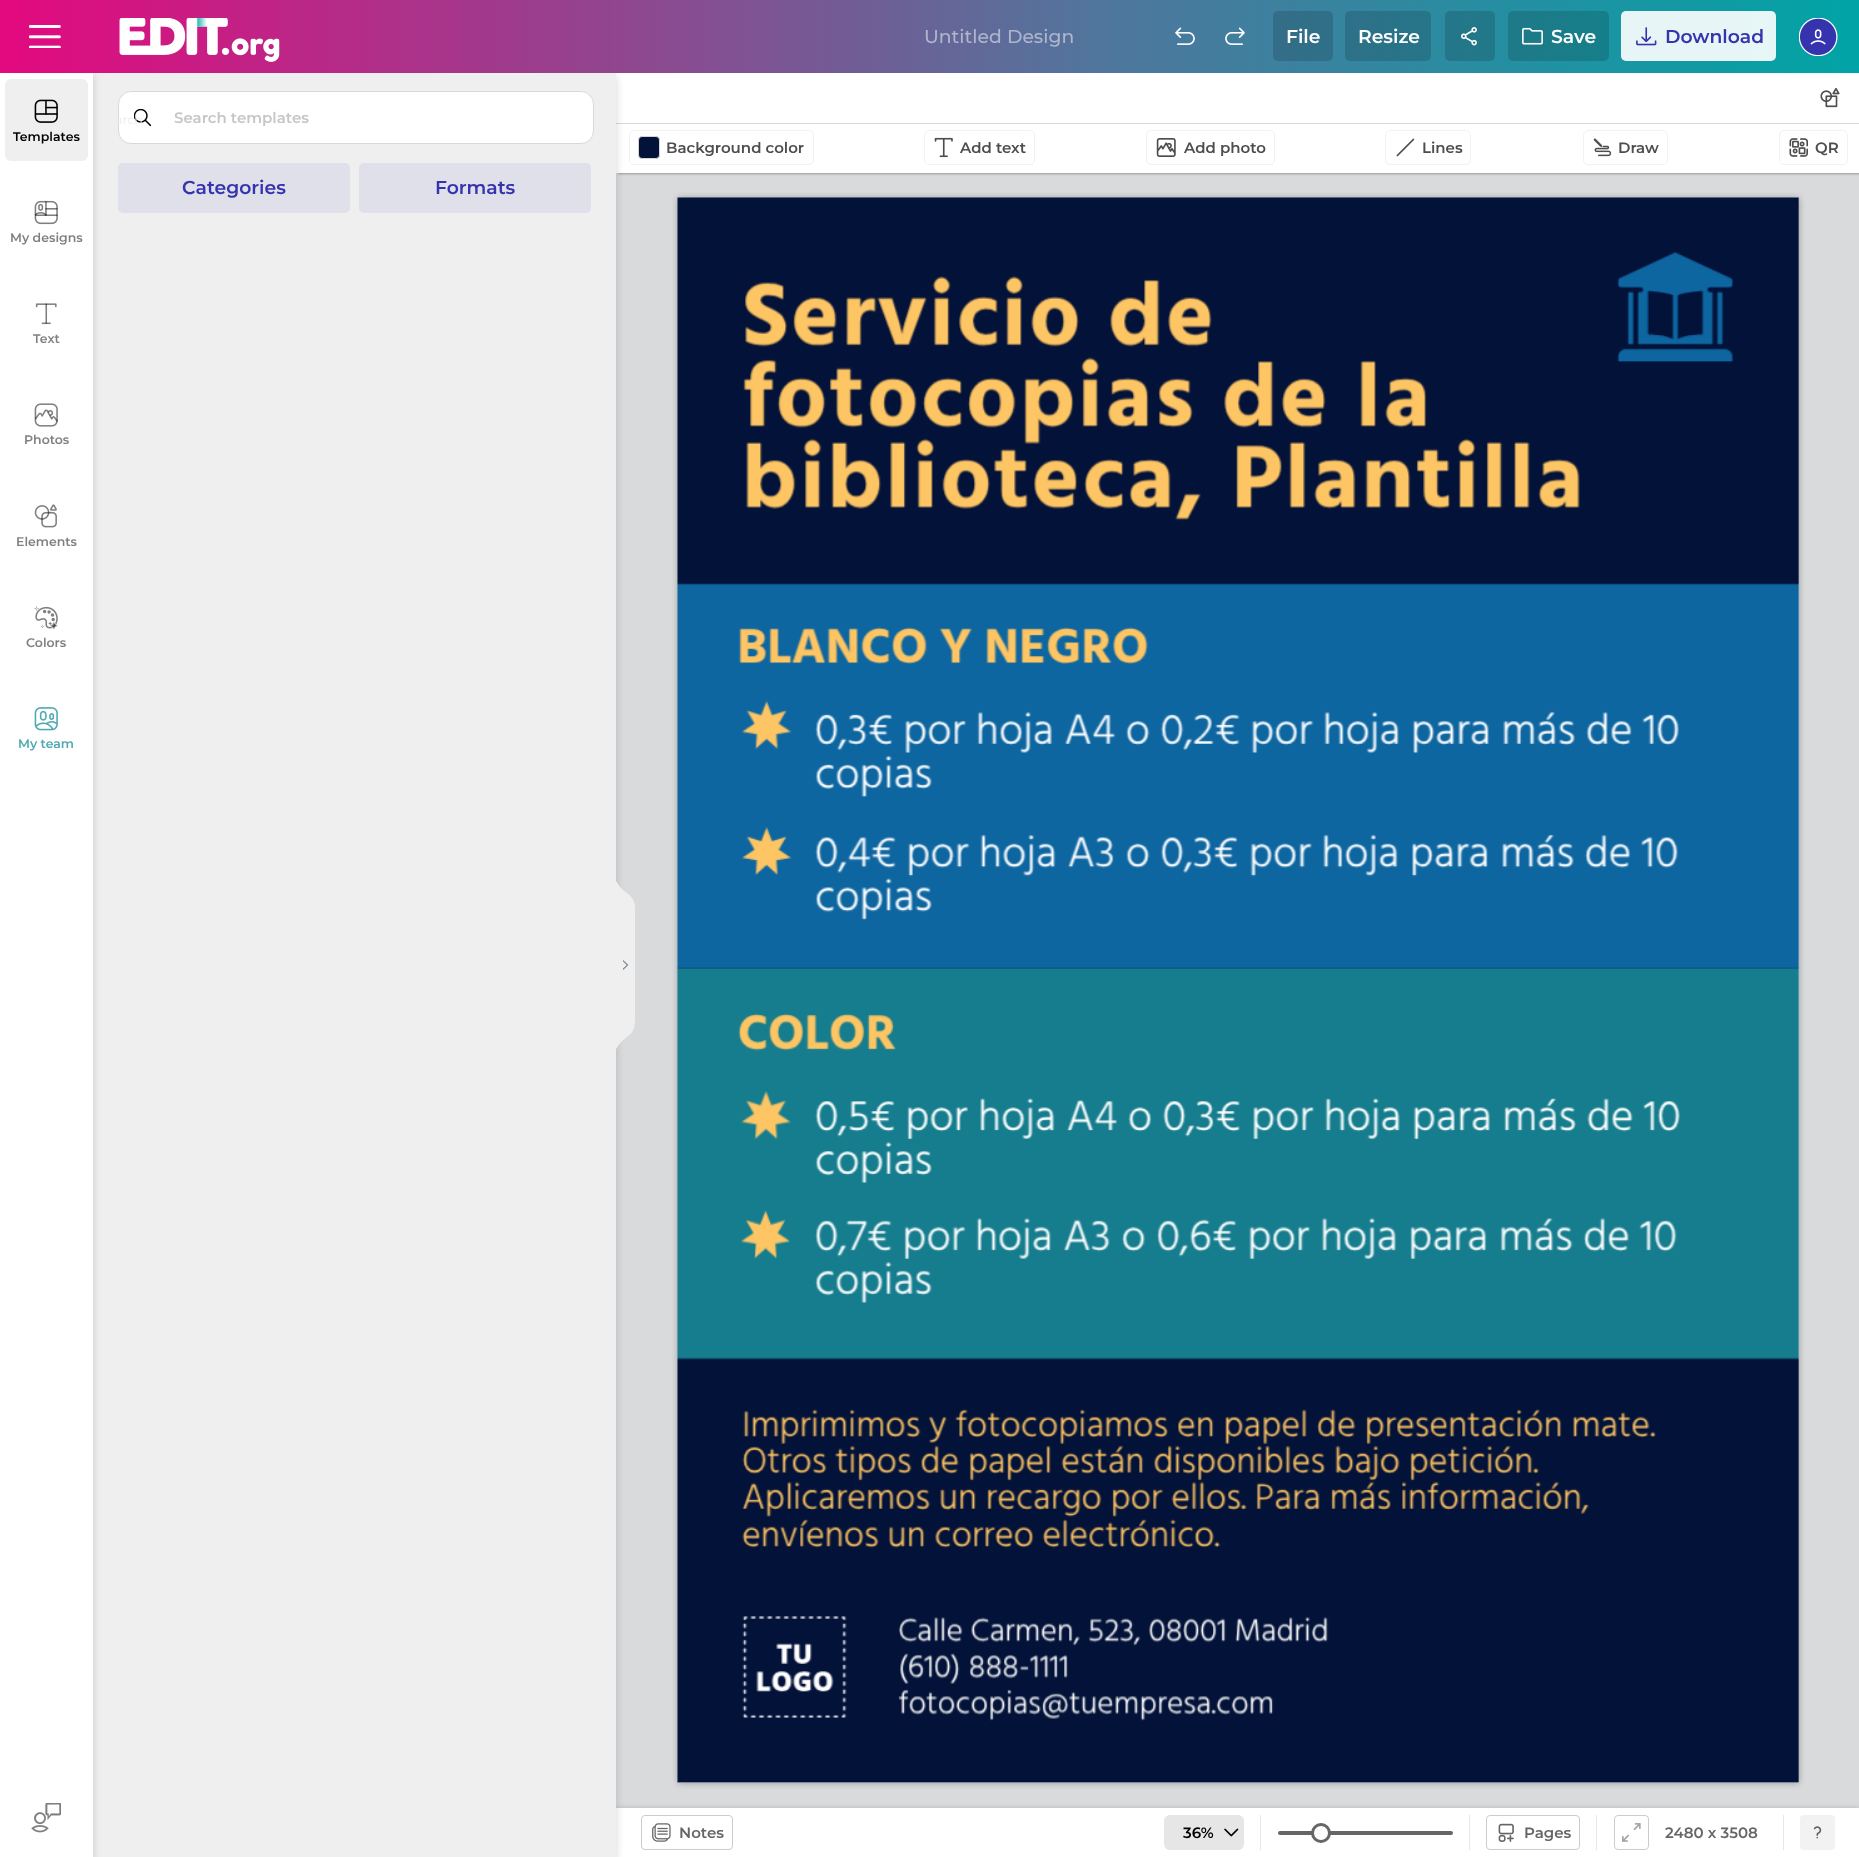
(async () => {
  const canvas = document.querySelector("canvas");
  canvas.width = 1859;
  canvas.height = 1857;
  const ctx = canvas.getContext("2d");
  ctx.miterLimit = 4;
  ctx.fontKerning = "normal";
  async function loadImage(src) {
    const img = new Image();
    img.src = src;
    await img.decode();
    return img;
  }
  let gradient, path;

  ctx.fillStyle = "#d8dadb";
  ctx.fillRect(0, 0, 1859, 1857);
  ctx.fillStyle = "rgba(0, 0, 0, 0.3)";
  ctx.filter = "blur(1px)";
  ctx.beginPath();
  ctx.rect(618, 74, 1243, 100);
  ctx.fill();
  ctx.filter = "none";
  ctx.fillStyle = "#ffffff";
  ctx.fillRect(616, 73, 1243, 100);
  ctx.fillStyle = "#d9d9d9";
  ctx.fillRect(616, 123, 1243, 1);
  ctx.fillStyle = "rgba(0, 0, 0, 0.16)";
  ctx.filter = "blur(2.5px)";
  ctx.beginPath();
  ctx.rect(616, 1808, 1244, 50);
  ctx.fill();
  ctx.filter = "none";
  ctx.fillStyle = "#ffffff";
  ctx.fillRect(616, 1808, 1243, 49);
  ctx.fillStyle = "rgba(0, 0, 0, 0.16)";
  ctx.filter = "blur(4px)";
  ctx.beginPath();
  ctx.rect(0, 76, 616, 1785);
  ctx.fill();
  ctx.filter = "none";
  ctx.fillStyle = "#efefef";
  path = new Path2D("M627 1037C635 1031 635 1026 635 1018V912C635 904 635 899 627 893C617 886 615 878 615 878V1052C615 1052 617 1044 627 1037");
  ctx.fill(path);
  ctx.fillRect(93, 73, 523, 1784);
  ctx.fillStyle = "rgba(0, 0, 0, 0.16)";
  ctx.filter = "blur(4px)";
  ctx.beginPath();
  ctx.rect(0, 76, 93, 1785);
  ctx.fill();
  ctx.filter = "none";
  gradient = ctx.createLinearGradient(0, 36, 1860, 36);
  gradient.addColorStop(0, "#e3097e");
  gradient.addColorStop(0.6, "#4e779d");
  gradient.addColorStop(1, "#00a4a6");
  ctx.fillStyle = gradient;
  ctx.fillRect(0, 0, 1859, 73);
  ctx.drawImage(await loadImage("img/1.png"), 29, 25, 32, 23);
  ctx.drawImage(await loadImage("img/2.png"), 119, 18, 161, 44);
  ctx.drawImage(await loadImage("img/3.png"), 1175, 27, 20, 18);
  ctx.drawImage(await loadImage("img/4.png"), 1225, 27, 20, 18);
  ctx.fillStyle = "rgba(0, 0, 0, 0.15)";
  ctx.beginPath();
  ctx.roundRect(1273, 11, 60, 50, 5);
  ctx.fill();
  ctx.beginPath();
  ctx.roundRect(1345, 11, 86, 50, 5);
  ctx.fill();
  ctx.beginPath();
  ctx.roundRect(1445, 11, 50, 50, 5);
  ctx.fill();
  ctx.drawImage(await loadImage("img/5.png"), 1461, 27, 16, 19);
  ctx.beginPath();
  ctx.roundRect(1508, 11, 101, 50, 5);
  ctx.fill();
  ctx.drawImage(await loadImage("img/6.png"), 1522, 27, 21, 18);
  ctx.fillStyle = "rgba(255, 255, 255, 0.9)";
  ctx.beginPath();
  ctx.roundRect(1621, 11, 155, 50, 5);
  ctx.fill();
  ctx.drawImage(await loadImage("img/7.png"), 1636, 27, 21, 19);
  ctx.drawImage(await loadImage("img/8.png"), 1799, 18, 39, 38);
  ctx.fillStyle = "#ffffff";
  ctx.fillRect(0, 73, 93, 1784);
  ctx.fillStyle = "#efefef";
  ctx.beginPath();
  ctx.roundRect(5, 79, 83, 82, 6);
  ctx.fill();
  ctx.drawImage(await loadImage("img/9.png"), 34, 99, 24, 24);
  ctx.drawImage(await loadImage("img/10.png"), 34, 200, 24, 25);
  ctx.drawImage(await loadImage("img/11.png"), 35, 303, 22, 22);
  ctx.drawImage(await loadImage("img/12.png"), 34, 403, 24, 24);
  ctx.drawImage(await loadImage("img/13.png"), 34, 504, 23, 24);
  ctx.drawImage(await loadImage("img/14.png"), 34, 606, 24, 24);
  ctx.drawImage(await loadImage("img/15.png"), 34, 707, 24, 24);
  ctx.drawImage(await loadImage("img/16.png"), 31, 1803, 30, 30);
  ctx.fillStyle = "#ffffff";
  ctx.beginPath();
  ctx.roundRect(118.5, 91.5, 475, 52, 12.5);
  ctx.fill();
  ctx.strokeStyle = "#d7dadb";
  ctx.stroke();
  ctx.drawImage(await loadImage("img/17.png"), 134, 109, 17, 17);
  ctx.fillStyle = "#e0e0ea";
  ctx.beginPath();
  ctx.roundRect(118, 163, 232, 50, 5);
  ctx.fill();
  ctx.beginPath();
  ctx.roundRect(359, 163, 232, 50, 5);
  ctx.fill();
  ctx.drawImage(await loadImage("img/18.png"), 623, 960, 5, 10);
  ctx.drawImage(await loadImage("img/19.png"), 1820, 87, 20, 21);
  ctx.beginPath();
  ctx.roundRect(629.5, 130.5, 184, 34, 4.5);
  ctx.strokeStyle = "#f2f2f2";
  ctx.stroke();
  ctx.fillStyle = "#031238";
  ctx.beginPath();
  ctx.roundRect(638.5, 136.5, 21, 22, 3.5);
  ctx.fill();
  ctx.strokeStyle = "#d6d4d4";
  ctx.stroke();
  ctx.beginPath();
  ctx.roundRect(924.5, 130.5, 110, 34, 4.5);
  ctx.strokeStyle = "#f2f2f2";
  ctx.stroke();
  ctx.drawImage(await loadImage("img/20.png"), 934, 137, 19, 21);
  ctx.beginPath();
  ctx.roundRect(1146.5, 130.5, 128, 34, 4.5);
  ctx.stroke();
  ctx.drawImage(await loadImage("img/21.png"), 1156, 138, 20, 19);
  ctx.beginPath();
  ctx.roundRect(1385.5, 130.5, 85, 34, 4.5);
  ctx.stroke();
  ctx.drawImage(await loadImage("img/22.png"), 1396, 138, 19, 19);
  ctx.beginPath();
  ctx.roundRect(1583.5, 130.5, 84, 34, 4.5);
  ctx.stroke();
  ctx.drawImage(await loadImage("img/23.png"), 1593, 138, 19, 19);
  ctx.beginPath();
  ctx.roundRect(1779.5, 130.5, 68, 34, 4.5);
  ctx.stroke();
  ctx.drawImage(await loadImage("img/24.png"), 1789, 138, 19, 19);
  ctx.fillStyle = "rgba(0, 0, 0, 0.3)";
  ctx.filter = "blur(3px)";
  ctx.beginPath();
  ctx.rect(678, 198, 1121, 1585);
  ctx.fill();
  ctx.filter = "none";
  ctx.fillStyle = "#ffffff";
  ctx.fillRect(678, 198, 1121, 1585);
  ctx.drawImage(await loadImage("img/25.png"), 677, 197, 1122, 1586);
  ctx.beginPath();
  ctx.roundRect(641.5, 1815.5, 91, 34, 3.5);
  ctx.strokeStyle = "#cccccc";
  ctx.stroke();
  ctx.drawImage(await loadImage("img/26.png"), 652, 1823, 19, 19);
  ctx.fillStyle = "#e6e6e6";
  ctx.fillRect(1260, 1815, 1, 35);
  ctx.beginPath();
  ctx.roundRect(1164, 1815, 80, 35, 6);
  ctx.fill();
  ctx.drawImage(await loadImage("img/27.png"), 1224, 1828, 15, 9);
  ctx.fillStyle = "#666666";
  ctx.beginPath();
  ctx.roundRect(1278, 1831, 175, 4, 2);
  ctx.fill();
  ctx.fillStyle = "#ffffff";
  ctx.beginPath();
  ctx.arc(1321, 1833, 8.5, 0, Math.PI * 2);
  ctx.fill();
  ctx.strokeStyle = "#666666";
  ctx.lineWidth = 3;
  ctx.stroke();
  ctx.fillStyle = "#e6e6e6";
  ctx.fillRect(1469, 1815, 1, 35);
  ctx.beginPath();
  ctx.roundRect(1486.5, 1815.5, 93, 34, 3.5);
  ctx.strokeStyle = "#cccccc";
  ctx.lineWidth = 1;
  ctx.stroke();
  ctx.drawImage(await loadImage("img/28.png"), 1498, 1823, 16, 19);
  ctx.fillRect(1596, 1815, 1, 35);
  ctx.beginPath();
  ctx.roundRect(1614.5, 1815.5, 34, 34, 3.5);
  ctx.stroke();
  ctx.drawImage(await loadImage("img/29.png"), 1622, 1823, 19, 19);
  ctx.fillRect(1783, 1815, 1, 35);
  ctx.fillStyle = "#f2f2f2";
  ctx.beginPath();
  ctx.roundRect(1800, 1815, 35, 35, 4);
  ctx.fill();
  ctx.drawImage(await loadImage("img/30.png"), 1813, 1826, 9, 13);
  ctx.font = "500 18.75px Montserrat";
  ctx.fillStyle = "#aeb5cc";
  ctx.fillText("Untitled Design", 924, 43);
  ctx.font = "600 18.75px Montserrat";
  ctx.fillStyle = "#ffffff";
  for (const [text, x, y] of [
    ["File", 1286, 43],
    ["Resize", 1358, 43],
    ["Save", 1551, 43],
  ]) {
    ctx.fillText(text, x, y);
  }
  ctx.fillStyle = "#3533ad";
  ctx.fillText("Download", 1665, 43);
  ctx.font = "12.5px Montserrat";
  ctx.fillStyle = "#ebecec";
  ctx.fillText("arch", 115, 124);
  ctx.font = "600 12.5px Montserrat";
  ctx.fillStyle = "#000000";
  ctx.fillText("Templates", 13, 141);
  ctx.fillStyle = "#808080";
  for (const [text, x, y] of [
    ["My designs", 10, 242],
    ["Text", 33, 343],
    ["Photos", 24, 444],
    ["Elements", 16, 546],
    ["Colors", 26, 647],
  ]) {
    ctx.fillText(text, x, y);
  }
  ctx.fillStyle = "#4fa9b1";
  ctx.fillText("My team", 18, 748);
  ctx.font = "600 15px Montserrat";
  ctx.fillStyle = "#c6c6c6";
  ctx.fillText("Search templates", 174, 123);
  ctx.font = "600 18.75px Montserrat";
  ctx.fillStyle = "#3533ad";
  ctx.fillText("Categories", 182, 194);
  ctx.fillText("Formats", 435, 194);
  ctx.font = "600 15px Montserrat";
  ctx.fillStyle = "#4d4d4d";
  for (const [text, x, y] of [
    ["Background color", 666, 153],
    ["Add text", 960, 153],
    ["Add photo", 1184, 153],
    ["Lines", 1422, 153],
    ["Draw", 1618, 153],
    ["QR", 1815, 153],
  ]) {
    ctx.fillText(text, x, y);
  }
  ctx.fillStyle = "#666666";
  ctx.fillText("Notes", 679, 1838);
  ctx.fillStyle = "#000000";
  ctx.fillText("36%", 1183, 1838);
  ctx.fillStyle = "#666666";
  ctx.fillText("Pages", 1524, 1838);
  ctx.fillText("2480 x 3508", 1665, 1838);
})();
